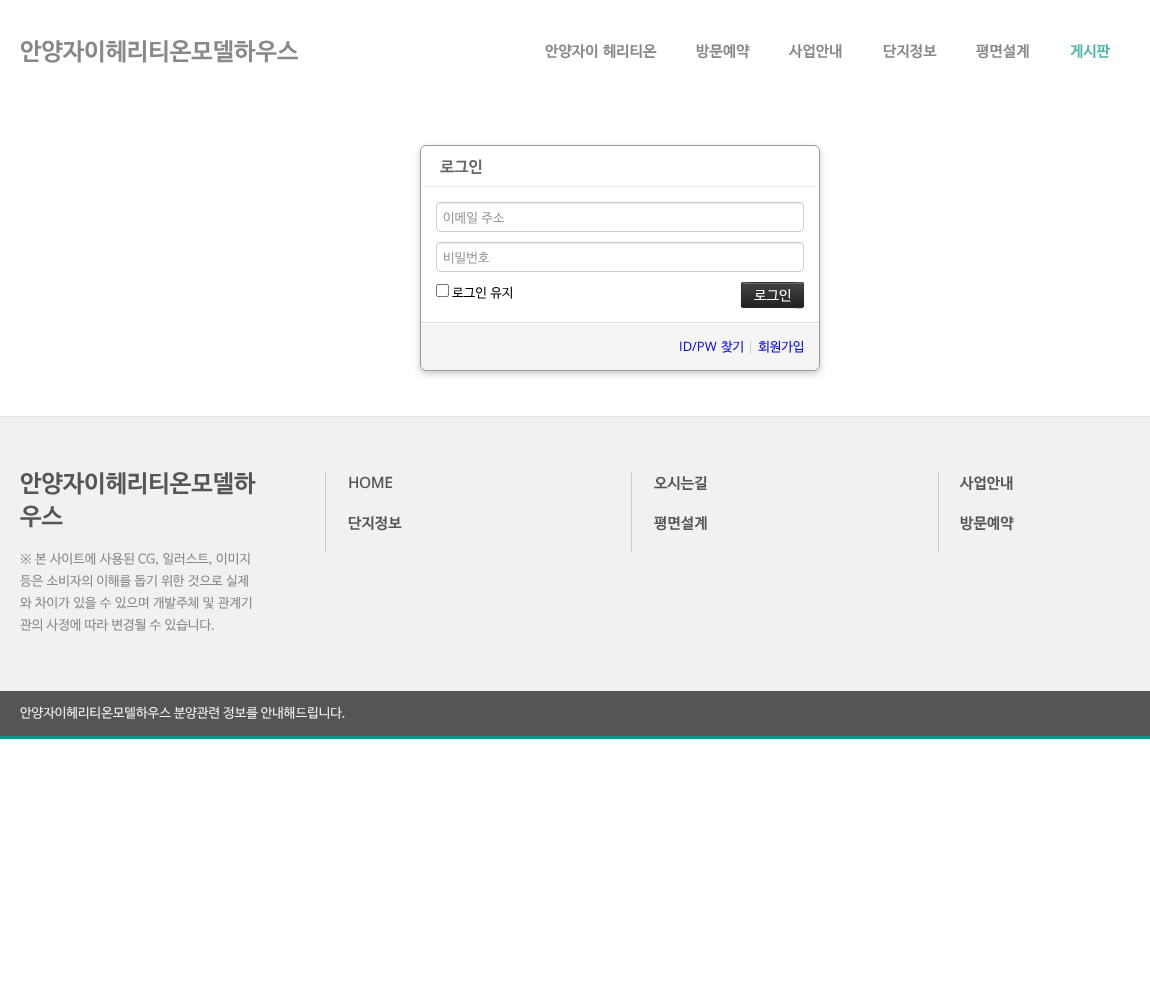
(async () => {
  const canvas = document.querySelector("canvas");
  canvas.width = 1150;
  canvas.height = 1003;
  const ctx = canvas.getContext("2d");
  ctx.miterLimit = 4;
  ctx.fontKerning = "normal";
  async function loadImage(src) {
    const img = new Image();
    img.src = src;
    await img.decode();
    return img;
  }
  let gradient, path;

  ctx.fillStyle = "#ffffff";
  ctx.fillRect(0, 0, 1150, 1003);
  ctx.fillStyle = "#cccccc";
  ctx.filter = "blur(3.5px)";
  ctx.beginPath();
  ctx.roundRect(420, 148, 400, 226, 6);
  ctx.fill();
  ctx.filter = "none";
  ctx.fillStyle = "#ffffff";
  ctx.beginPath();
  ctx.roundRect(420.5, 145.5, 399, 225, 5.5);
  ctx.fill();
  ctx.strokeStyle = "#999999";
  ctx.stroke();
  ctx.fillStyle = "#eeeeee";
  ctx.fillRect(421, 186, 398, 1);
  ctx.fillStyle = "#ececec";
  path = new Path2D("M440 204H800C802 204 803 205 803 207C803 205 802 203 800 203H440L438 204L437 207C437 205 438 204 440 204Z");
  ctx.fill(path);
  ctx.beginPath();
  ctx.roundRect(436.5, 202.5, 367, 29, 3.5);
  ctx.strokeStyle = "#cccccc";
  ctx.stroke();
  path = new Path2D("M440 244H800C802 244 803 245 803 247C803 245 802 243 800 243H440L438 244L437 247C437 245 438 244 440 244Z");
  ctx.fill(path);
  ctx.beginPath();
  ctx.roundRect(436.5, 242.5, 367, 29, 3.5);
  ctx.stroke();
  ctx.beginPath();
  ctx.roundRect(436.5, 284.5, 12, 12, 1.5);
  ctx.strokeStyle = "#767676";
  ctx.stroke();
  ctx.fillStyle = "rgba(0, 0, 0, 0.05)";
  ctx.filter = "blur(1px)";
  ctx.beginPath();
  ctx.roundRect(741, 283, 63, 26, 2);
  ctx.fill();
  ctx.filter = "none";
  ctx.fillStyle = "#363636";
  ctx.beginPath();
  ctx.roundRect(741, 282, 63, 26, 2);
  ctx.fill();
  ctx.save();
  ctx.beginPath();
  ctx.roundRect(741, 282, 63, 26, 2);
  ctx.clip();
  gradient = ctx.createLinearGradient(773, 283, 773, 307);
  gradient.addColorStop(0, "#444444");
  gradient.addColorStop(1, "#222222");
  ctx.fillStyle = gradient;
  ctx.fillRect(741, 283, 63, 24);
  ctx.restore();
  ctx.fillStyle = "rgba(255, 255, 255, 0.2)";
  path = new Path2D("M743 284H802C803 284 803 284 803 285C803 280 796 283 792 283H753C749 283 742 280 742 285C742 284 742 284 743 284Z");
  ctx.fill(path);
  path = new Path2D("M803 307C800.5 309.5 796 307.5 792 307.5L742 307");
  ctx.strokeStyle = "rgba(0, 0, 0, 0.25)";
  ctx.stroke(path);
  path = new Path2D("M742 307C740.5 305.5 741.5 297 741.5 295C741.5 280 738.5 282.5 753 282.5H792C806.5 282.5 803.5 280 803.5 295C803.5 297 804.5 305.5 803 307");
  ctx.strokeStyle = "rgba(0, 0, 0, 0.1)";
  ctx.stroke(path);
  ctx.fillStyle = "#f5f5f5";
  ctx.beginPath();
  ctx.roundRect(421, 322, 398, 48, [0, 0, 6, 6]);
  ctx.fill();
  for (const [x, y, w, h, color] of [
    [421, 323, 398, 1, "#ffffff"],
    [421, 322, 398, 1, "#dddddd"],
    [0, 417, 1150, 274, "#f1f1f1"],
    [0, 416, 1150, 1, "#e4e4e4"],
    [0, 736, 1150, 3, "#009688"],
  ]) {
    ctx.fillStyle = color;
    ctx.fillRect(x, y, w, h);
  }
  ctx.drawImage(await loadImage("img/1.png"), 325, 472, 614, 80);
  ctx.fillStyle = "#555555";
  ctx.fillRect(0, 691, 1150, 45);
  ctx.font = "bold 24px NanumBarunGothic";
  ctx.fillStyle = "#888888";
  ctx.fillText("안양자이헤리티온모델하우스", 20, 59);
  ctx.wordSpacing = "1px";
  ctx.font = "bold 15px NanumBarunGothic";
  ctx.fillText("안양자이 헤리티온", 545, 56);
  ctx.wordSpacing = "0px";
  for (const [text, x, y] of [
    ["방문예약", 696, 56],
    ["사업안내", 789, 56],
    ["단지정보", 883, 56],
    ["평면설계", 976, 56],
  ]) {
    ctx.fillText(text, x, y);
  }
  ctx.fillStyle = "#4db6ac";
  ctx.fillText("게시판", 1070, 56);
  ctx.font = "bold 16px NanumBarunGothic";
  ctx.fillStyle = "#666666";
  ctx.fillText("로그인", 440, 172);
  ctx.wordSpacing = "0.5px";
  ctx.font = "13px NanumBarunGothic";
  ctx.fillStyle = "#999999";
  ctx.fillText("이메일 주소", 443, 222);
  ctx.wordSpacing = "0px";
  ctx.fillText("비밀번호", 443, 262);
  ctx.wordSpacing = "0.5px";
  ctx.fillStyle = "#000000";
  ctx.fillText("로그인 유지", 452, 297);
  ctx.wordSpacing = "0px";
  ctx.font = "14px NanumBarunGothic";
  ctx.fillStyle = "#ffffff";
  ctx.fillText("로그인", 754, 300);
  ctx.font = "13px Open Sans";
  ctx.fillStyle = "#0000ee";
  ctx.fillText("ID/PW", 679, 351);
  ctx.font = "13px NanumBarunGothic";
  ctx.fillText("찾기", 721, 351);
  ctx.font = "13px Open Sans";
  ctx.fillStyle = "#cccccc";
  ctx.fillText("|", 747, 351);
  ctx.font = "13px NanumBarunGothic";
  ctx.fillStyle = "#0000ee";
  ctx.fillText("회원가입", 758, 351);
  ctx.font = "bold 24px NanumBarunGothic";
  ctx.fillStyle = "#555555";
  ctx.fillText("안양자이헤리티온모델하", 20, 491);
  ctx.fillText("우스", 20, 524);
  ctx.wordSpacing = "0.5px";
  ctx.font = "13px NanumBarunGothic";
  ctx.fillStyle = "#888888";
  for (const [text, x, y] of [
    ["※ 본 사이트에 사용된 CG, 일러스트, 이미지", 20, 563],
    ["등은 소비자의 이해를 돕기 위한 것으로 실제", 20, 585],
    ["와 차이가 있을 수 있으며 개발주체 및 관계기", 20, 607],
    ["관의 사정에 따라 변경될 수 있습니다.", 20, 629],
  ]) {
    ctx.fillText(text, x, y);
  }
  ctx.wordSpacing = "0px";
  ctx.font = "bold 15px Open Sans";
  ctx.fillStyle = "#555555";
  ctx.fillText("HOME", 348, 488);
  ctx.font = "bold 15px NanumBarunGothic";
  for (const [text, x, y] of [
    ["오시는길", 654, 488],
    ["사업안내", 960, 488],
    ["단지정보", 348, 528],
    ["평면설계", 654, 528],
    ["방문예약", 960, 528],
  ]) {
    ctx.fillText(text, x, y);
  }
  ctx.font = "13px NanumBarunGothic";
  ctx.fillStyle = "#f1f1f1";
  ctx.fillText("안양자이헤리티온모델하우스 분양관련 정보를 안내해드립니다.", 20, 717);
})();
